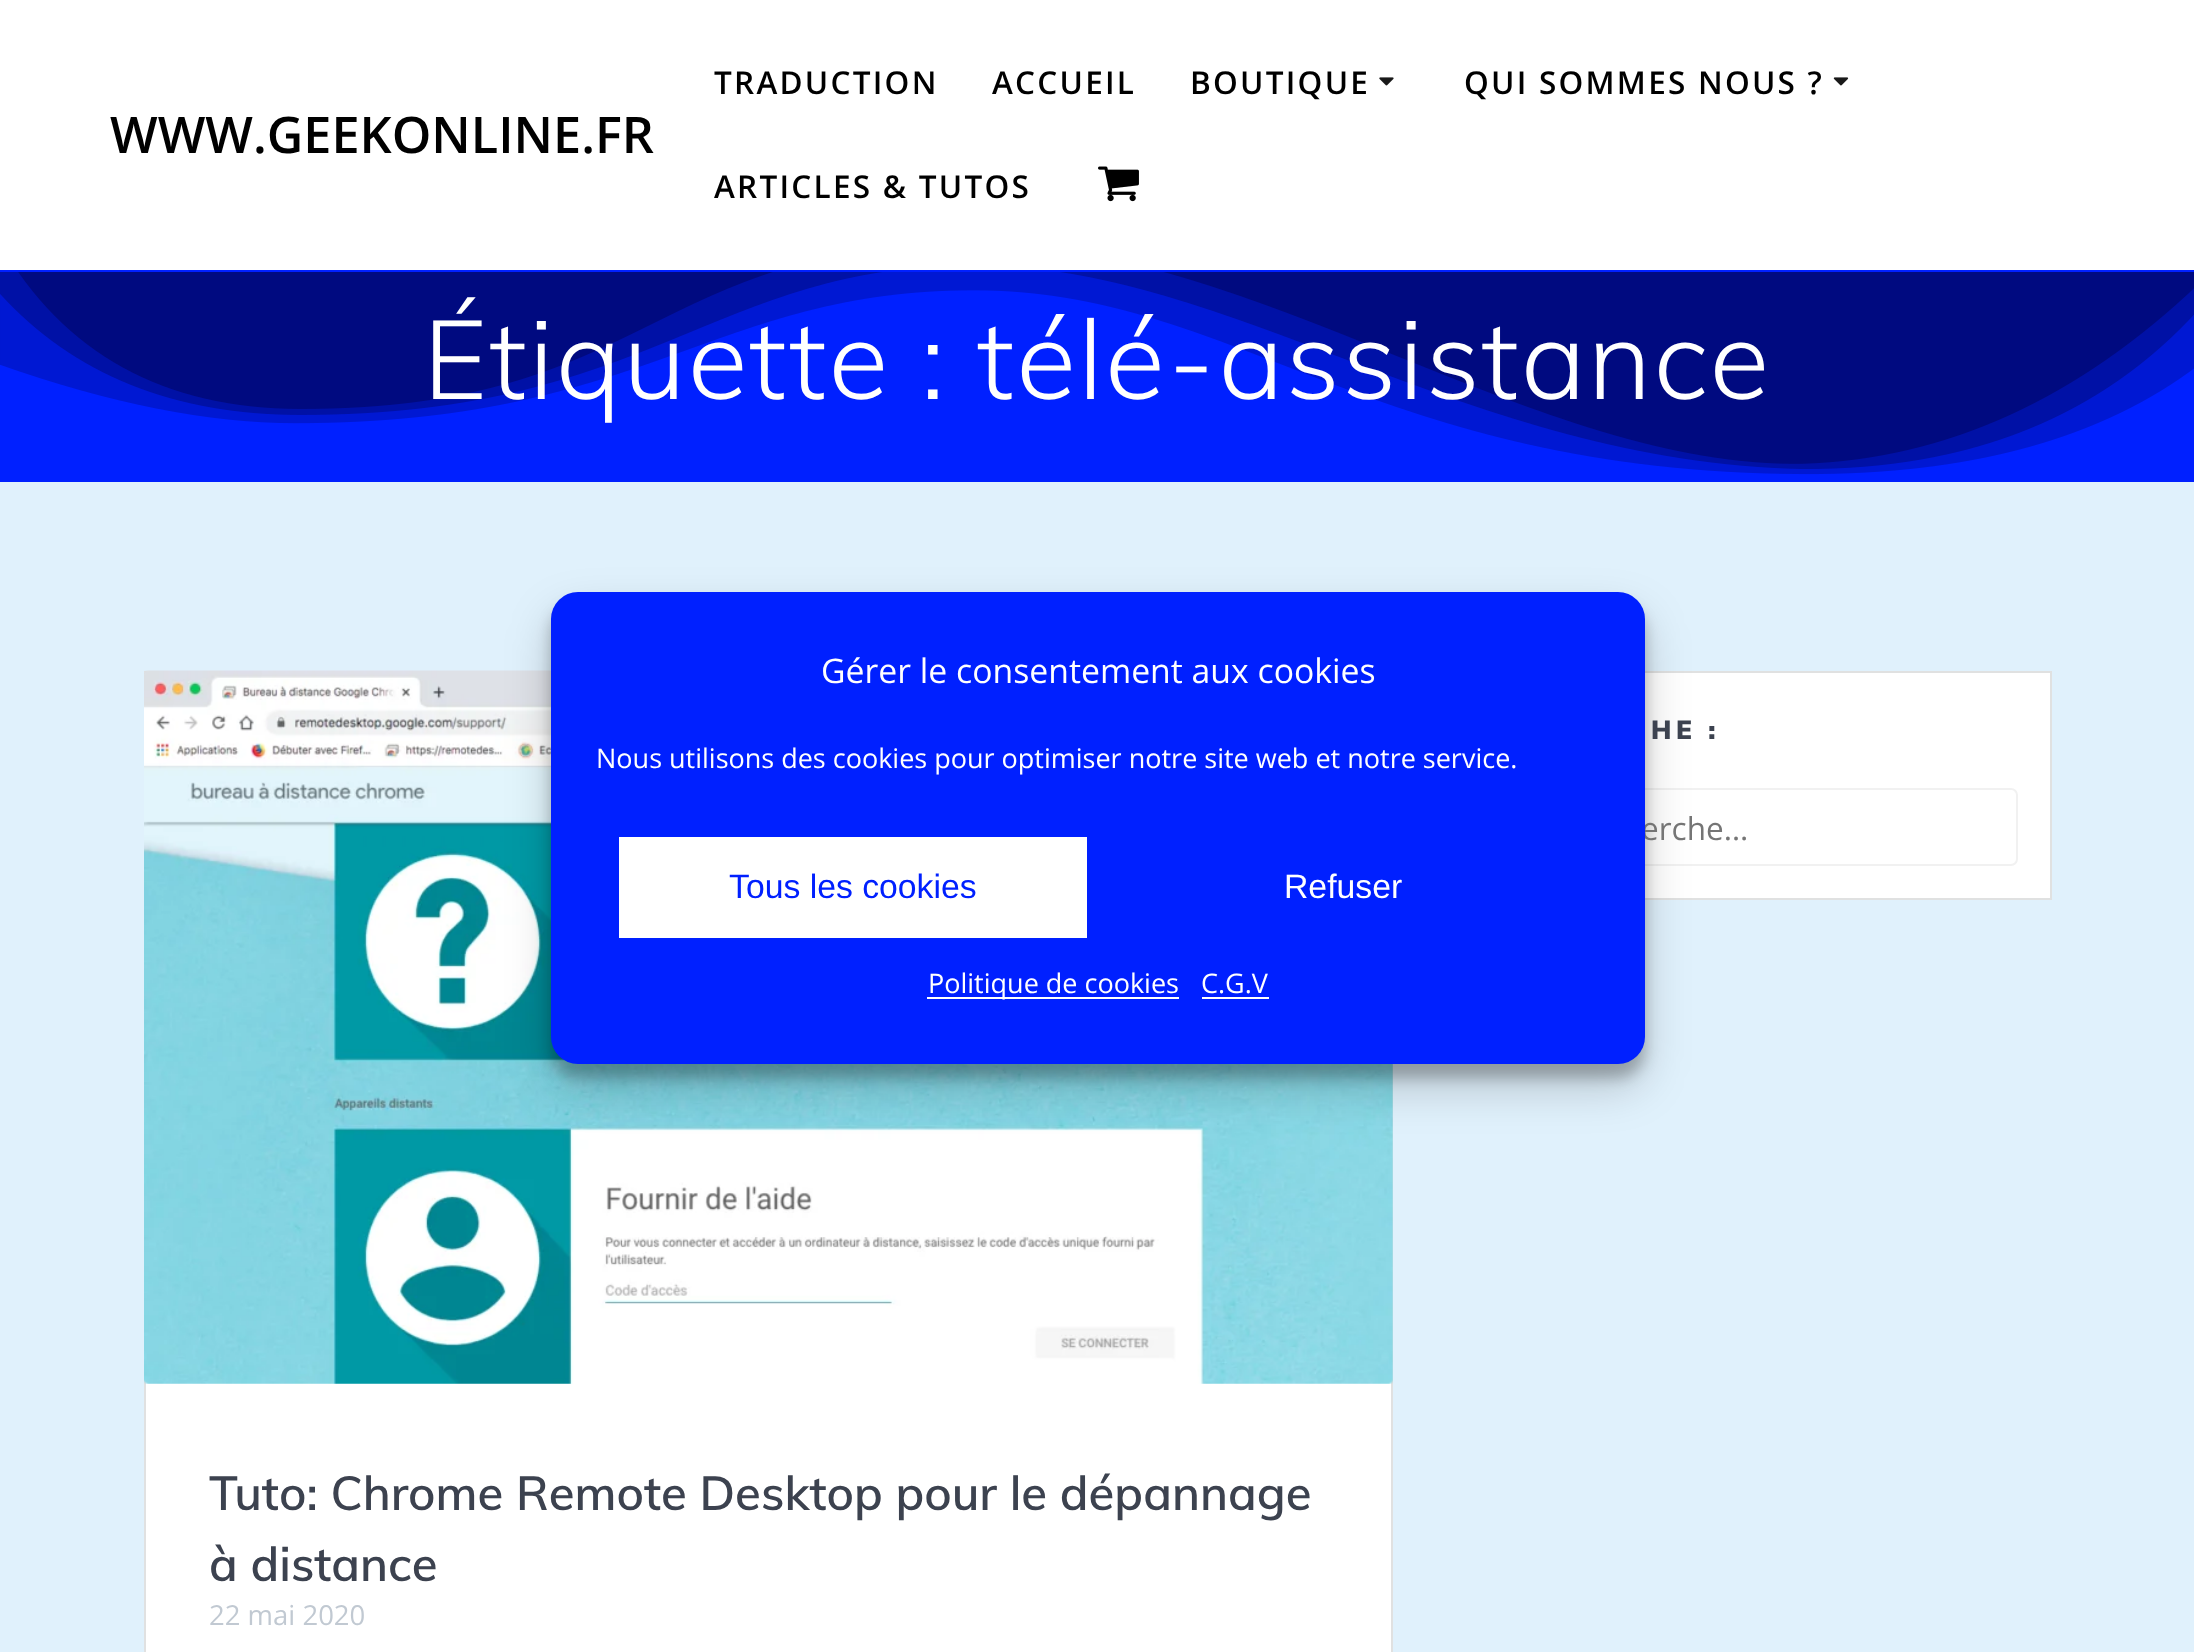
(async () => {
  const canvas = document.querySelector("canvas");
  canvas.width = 2194;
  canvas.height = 1652;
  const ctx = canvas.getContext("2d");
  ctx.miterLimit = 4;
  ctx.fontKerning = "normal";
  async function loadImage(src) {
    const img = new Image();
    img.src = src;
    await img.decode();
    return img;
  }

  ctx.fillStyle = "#000a80";
  ctx.fillRect(0, 0, 2194, 1652);
  ctx.fillStyle = "#ffffff";
  ctx.fillRect(0, 0, 2194, 270);
  ctx.fillStyle = "#0020ff";
  ctx.fillRect(0, 270, 2194, 2);
  ctx.drawImage(await loadImage("img/1.png"), 1379, 77, 15, 9);
  ctx.drawImage(await loadImage("img/2.png"), 1833, 77, 16, 9);
  ctx.drawImage(await loadImage("img/3.png"), 1098, 166, 41, 36);
  ctx.drawImage(await loadImage("img/4.png"), 0, 272, 2194, 210);
  ctx.fillStyle = "#e0f1fc";
  ctx.fillRect(0, 482, 2194, 1170);
  ctx.fillStyle = "#ffffff";
  ctx.fillRect(1645, 673, 405, 225);
  ctx.strokeStyle = "#e0e1e1";
  ctx.lineWidth = 2;
  ctx.strokeRect(1461, 672, 590, 227);
  ctx.beginPath();
  ctx.roundRect(1495, 789, 522, 76, 6);
  ctx.strokeStyle = "#f1f1f1";
  ctx.stroke();
  ctx.fillRect(146, 1381, 1245, 271);
  ctx.strokeStyle = "#e0e1e1";
  ctx.strokeRect(145, 672, 1247, 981);
  ctx.drawImage(await loadImage("img/5.png"), 144, 670, 1249, 714);
  ctx.fillStyle = "rgba(0, 0, 0, 0.23)";
  ctx.filter = "blur(7px)";
  ctx.beginPath();
  ctx.roundRect(551, 605, 1094, 473, 27);
  ctx.fill();
  ctx.filter = "none";
  ctx.fillStyle = "rgba(0, 0, 0, 0.19)";
  ctx.filter = "blur(22.5px)";
  ctx.beginPath();
  ctx.roundRect(551, 614, 1094, 473, 27);
  ctx.fill();
  ctx.filter = "none";
  ctx.font = "600 50.4px Open Sans";
  ctx.fillStyle = "#000000";
  ctx.fillText("WWW.GEEKONLINE.FR", 110, 153);
  ctx.letterSpacing = "2.25px";
  ctx.font = "600 31.5px Open Sans";
  for (const [text, x, y] of [
    ["TRADUCTION", 714, 94],
    ["ACCUEIL", 992, 94],
    ["BOUTIQUE", 1190, 94],
    ["QUI SOMMES NOUS ?", 1464, 94],
    ["ARTICLES & TUTOS", 714, 198],
  ]) {
    ctx.fillText(text, x, y);
  }
  ctx.letterSpacing = "2px";
  ctx.font = "300 110.25px Muli";
  ctx.fillStyle = "#ffffff";
  ctx.fillText("Étiquette : télé-assistance", 423, 399);
  ctx.letterSpacing = "4.5px";
  ctx.font = "900 26px Muli";
  ctx.fillStyle = "#3c424f";
  ctx.fillText("HE :", 1651, 739);
  ctx.letterSpacing = "0px";
  ctx.font = "31.5px Open Sans";
  ctx.fillStyle = "#757575";
  ctx.fillText("erche…", 1641, 840);
  ctx.font = "600 47.25px Muli";
  ctx.fillStyle = "#3c424f";
  ctx.fillText("Tuto: Chrome Remote Desktop pour le dépannage", 209, 1510);
  ctx.fillText("à distance", 209, 1581);
  ctx.font = "27.5px Open Sans";
  ctx.fillStyle = "#c1c9d2";
  ctx.fillText("22 mai 2020", 209, 1625);
  ctx.fillStyle = "#0020ff";
  ctx.beginPath();
  ctx.roundRect(551, 592, 1094, 472, 27);
  ctx.fill();
  ctx.font = "33.75px Open Sans";
  ctx.fillStyle = "#ffffff";
  ctx.fillText("Gérer le consentement aux cookies", 821, 683);
  ctx.font = "27px Open Sans";
  ctx.fillText("Nous utilisons des cookies pour optimiser notre site web et notre service.", 596, 768);
  ctx.fillRect(619, 837, 468, 101);
  ctx.font = "33.75px Liberation Sans";
  ctx.fillStyle = "#0020ff";
  ctx.fillText("Tous les cookies", 729, 898);
  ctx.fillStyle = "#ffffff";
  ctx.fillText("Refuser", 1284, 898);
  ctx.fillRect(927, 997, 252, 2);
  ctx.font = "27px Open Sans";
  ctx.fillText("Politique de cookies", 928, 993);
  ctx.fillText("C.G.V", 1201, 993);
  ctx.fillRect(1202, 997, 67, 2);
})();
